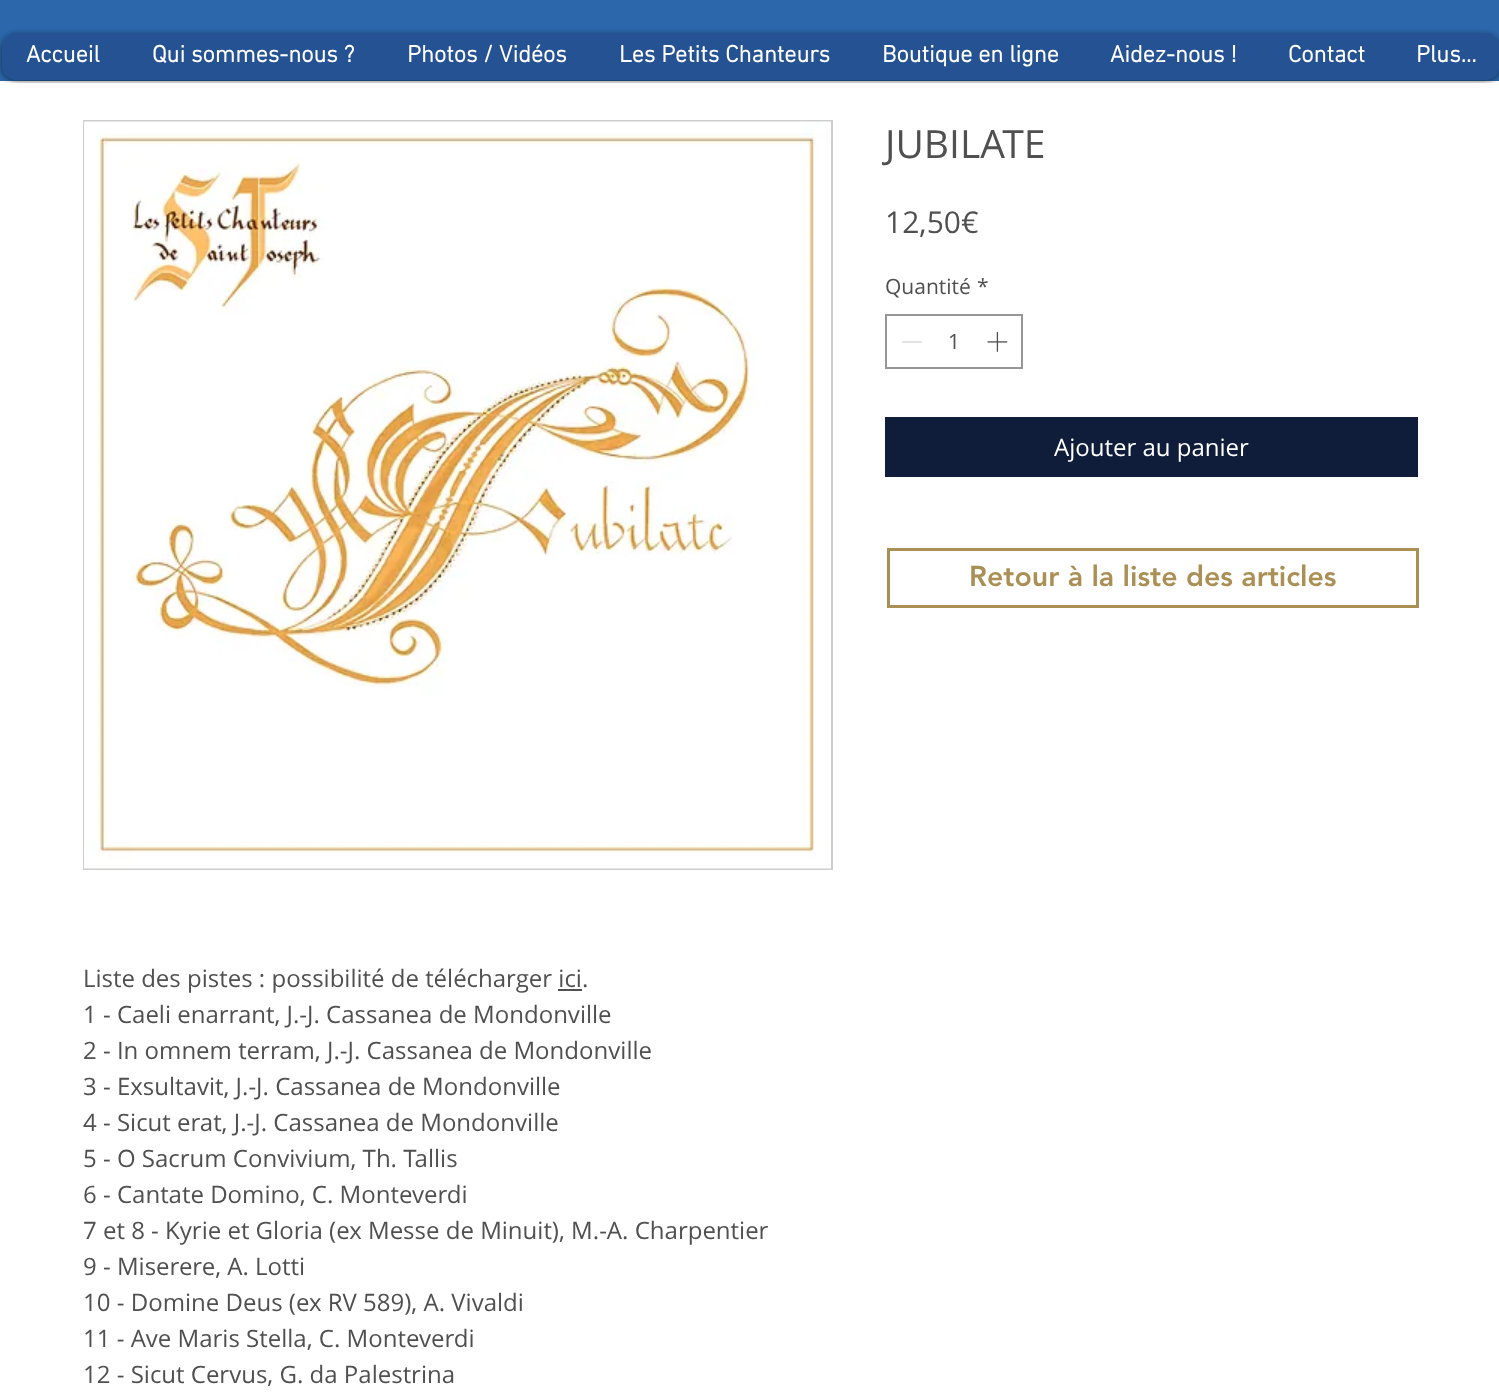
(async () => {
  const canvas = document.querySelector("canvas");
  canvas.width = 1499;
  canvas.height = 1395;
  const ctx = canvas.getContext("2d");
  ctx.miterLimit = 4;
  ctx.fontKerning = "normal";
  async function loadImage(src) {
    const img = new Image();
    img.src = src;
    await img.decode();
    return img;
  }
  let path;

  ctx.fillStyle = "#ffffff";
  ctx.fillRect(0, 0, 1499, 1395);
  ctx.fillStyle = "#2b67aa";
  ctx.fillRect(0, 0, 1499, 81);
  ctx.save();
  path = new Path2D("M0 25H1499V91H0ZM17 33H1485C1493.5 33 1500 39.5 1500 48V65C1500 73.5 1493.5 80 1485 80H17C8.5 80 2 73.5 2 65V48C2 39.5 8.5 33 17 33Z");
  ctx.clip(path, "evenodd");
  ctx.fillStyle = "rgba(0, 0, 0, 0.6)";
  ctx.filter = "blur(3px)";
  ctx.beginPath();
  ctx.roundRect(2, 35, 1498, 46, 15);
  ctx.fill();
  ctx.filter = "none";
  ctx.restore();
  ctx.fillStyle = "rgba(30, 58, 118, 0.44)";
  ctx.beginPath();
  ctx.roundRect(2, 33, 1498, 47, 15);
  ctx.fill();
  ctx.fillStyle = "rgba(255, 255, 255, 0.89)";
  ctx.fillRect(6, 83, 1491, 4);
  ctx.strokeStyle = "#969696";
  ctx.lineWidth = 2;
  ctx.strokeRect(886, 315, 136, 53);
  ctx.fillStyle = "#e3e3e3";
  ctx.fillRect(902, 341, 20, 2);
  ctx.drawImage(await loadImage("img/1.png"), 987, 332, 21, 20);
  ctx.fillStyle = "#0f1d3b";
  ctx.fillRect(885, 417, 533, 60);
  ctx.strokeStyle = "#cfcccc";
  ctx.strokeRect(84, 121, 748, 748);
  ctx.drawImage(await loadImage("img/2.png"), 84, 121, 747, 748);
  ctx.fillStyle = "#505050";
  ctx.fillRect(558, 989, 24, 2);
  ctx.strokeStyle = "#aa9055";
  ctx.lineWidth = 3;
  ctx.strokeRect(888.5, 549.5, 529, 57);
  ctx.font = "bold 24px 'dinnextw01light'";
  ctx.fillStyle = "#ffffff";
  for (const [text, x, y] of [
    ["Accueil", 26, 62],
    ["Qui sommes-nous ?", 152, 62],
    ["Photos / Vidéos", 407, 62],
    ["Les Petits Chanteurs", 619, 62],
    ["Boutique en ligne", 882, 62],
    ["Aidez-nous !", 1110, 62],
    ["Contact", 1288, 62],
    ["Plus...", 1416, 62],
  ]) {
    ctx.fillText(text, x, y);
  }
  ctx.font = "39px Open Sans";
  ctx.fillStyle = "#505050";
  ctx.fillText("JUBILATE", 885, 158);
  ctx.font = "30px Open Sans";
  ctx.fillText("12,50€", 885, 233);
  ctx.font = "21px Open Sans";
  for (const [text, x, y] of [
    ["Quantité", 885, 294],
    ["*", 977, 294],
    ["1", 948, 349],
  ]) {
    ctx.fillText(text, x, y);
  }
  ctx.font = "24px Open Sans";
  ctx.fillStyle = "#ffffff";
  ctx.fillText("Ajouter au panier", 1054, 456);
  ctx.fillStyle = "#505050";
  for (const [text, x, y] of [
    ["Liste des pistes : possibilité de télécharger ici.", 83, 987],
    ["1 - Caeli enarrant, J.-J. Cassanea de Mondonville", 83, 1023],
    ["2 - In omnem terram, J.-J. Cassanea de Mondonville", 83, 1059],
    ["3 - Exsultavit, J.-J. Cassanea de Mondonville", 83, 1095],
    ["4 - Sicut erat, J.-J. Cassanea de Mondonville", 83, 1131],
    ["5 - O Sacrum Convivium, Th. Tallis", 83, 1167],
    ["6 - Cantate Domino, C. Monteverdi", 83, 1203],
    ["7 et 8 - Kyrie et Gloria (ex Messe de Minuit), M.-A. Charpentier", 83, 1239],
    ["9 - Miserere, A. Lotti", 83, 1275],
    ["10 - Domine Deus (ex RV 589), A. Vivaldi", 83, 1311],
    ["11 - Ave Maris Stella, C. Monteverdi", 83, 1347],
    ["12 - Sicut Cervus, G. da Palestrina", 83, 1383],
  ]) {
    ctx.fillText(text, x, y);
  }
  ctx.font = "900 28.5px 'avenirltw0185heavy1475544'";
  ctx.fillStyle = "#aa9055";
  ctx.fillText("Retour à la liste des articles", 969, 586);
})();
